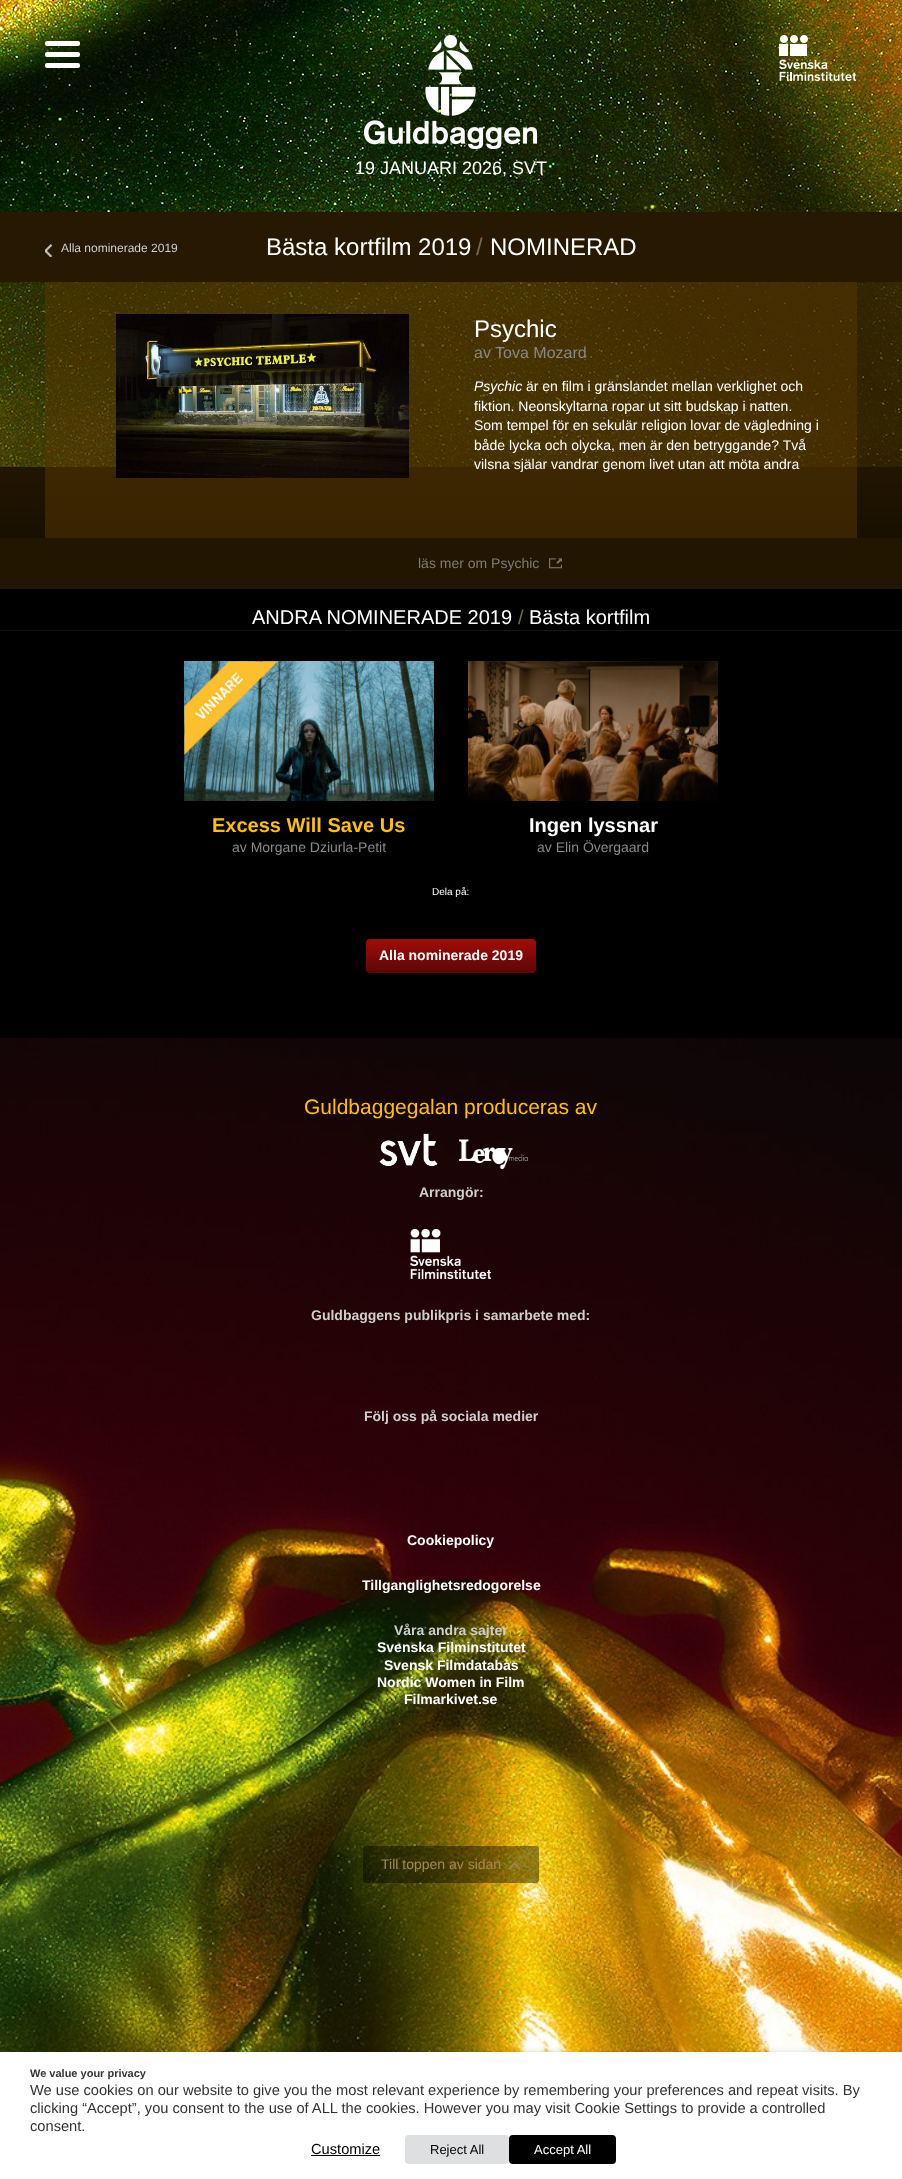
(async () => {
  const canvas = document.querySelector("canvas");
  canvas.width = 902;
  canvas.height = 2179;
  const ctx = canvas.getContext("2d");
  ctx.miterLimit = 4;
  ctx.fontKerning = "normal";
  async function loadImage(src) {
    const img = new Image();
    img.src = src;
    await img.decode();
    return img;
  }
  let gradient;

  ctx.fillStyle = "#000000";
  ctx.fillRect(0, 0, 902, 2179);
  ctx.drawImage(await loadImage("img/1.png"), 0, 0, 902, 467);
  ctx.fillStyle = "#ffffff";
  ctx.beginPath();
  ctx.roundRect(45, 41, 35, 5, 2);
  ctx.fill();
  ctx.beginPath();
  ctx.roundRect(45, 52, 35, 5, 2);
  ctx.fill();
  ctx.beginPath();
  ctx.roundRect(45, 63, 35, 5, 2);
  ctx.fill();
  ctx.drawImage(await loadImage("img/2.png"), 779, 35, 77, 46);
  ctx.drawImage(await loadImage("img/3.png"), 364, 35, 173, 114);
  ctx.fillStyle = "#261801";
  ctx.fillRect(0, 212, 902, 70);
  ctx.drawImage(await loadImage("img/4.png"), 45, 244, 8, 13);
  ctx.drawImage(await loadImage("img/5.png"), 0, 282, 902, 256);
  ctx.fillStyle = "rgba(88, 56, 2, 0.5)";
  ctx.fillRect(45, 282, 812, 256);
  ctx.drawImage(await loadImage("img/6.png"), 116, 314, 293, 164);
  ctx.fillStyle = "#221601";
  ctx.fillRect(0, 538, 902, 51);
  ctx.drawImage(await loadImage("img/7.png"), 549, 558, 13, 11);
  ctx.fillStyle = "#1b1104";
  ctx.fillRect(0, 630, 902, 1);
  ctx.drawImage(await loadImage("img/8.png"), 184, 661, 250, 140);
  ctx.drawImage(await loadImage("img/9.png"), 184, 661, 95, 94);
  ctx.drawImage(await loadImage("img/10.png"), 468, 661, 250, 140);
  gradient = ctx.createLinearGradient(451, 939, 451, 973);
  gradient.addColorStop(0, "#a10d09");
  gradient.addColorStop(1, "#5c0507");
  ctx.fillStyle = gradient;
  ctx.beginPath();
  ctx.roundRect(366, 939, 170, 34, 4);
  ctx.fill();
  ctx.drawImage(await loadImage("img/11.png"), 0, 1038, 902, 1014);
  ctx.drawImage(await loadImage("img/12.png"), 379, 1133, 59, 34);
  ctx.drawImage(await loadImage("img/13.png"), 459, 1139, 69, 30);
  ctx.drawImage(await loadImage("img/14.png"), 410, 1229, 81, 50);
  ctx.fillStyle = "rgba(0, 0, 0, 0.4)";
  ctx.beginPath();
  ctx.roundRect(363, 1846, 176, 37, 3);
  ctx.fill();
  ctx.drawImage(await loadImage("img/15.png"), 508, 1862, 13, 8);
  ctx.fillStyle = "rgba(0, 0, 0, 0.5)";
  ctx.filter = "blur(5px)";
  ctx.beginPath();
  ctx.rect(0, 2057, 902, 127);
  ctx.fill();
  ctx.filter = "none";
  ctx.fillStyle = "#ffffff";
  ctx.fillRect(0, 2052, 902, 127);
  ctx.fillStyle = "#000000";
  ctx.fillRect(311, 2155, 69, 1);
  ctx.fillStyle = "#dedfe0";
  ctx.beginPath();
  ctx.roundRect(405, 2135, 104, 29, 4);
  ctx.fill();
  ctx.fillStyle = "#000000";
  ctx.beginPath();
  ctx.roundRect(509, 2135, 107, 29, 4);
  ctx.fill();
  ctx.font = "18px Liberation Sans";
  ctx.fillStyle = "#ffffff";
  ctx.fillText("19 JANUARI 2026, SVT", 355, 174);
  ctx.font = "12px Liberation Sans";
  ctx.fillStyle = "#cecfcd";
  ctx.fillText("Alla nominerade 2019", 61, 252);
  ctx.font = "24px Liberation Sans";
  ctx.fillStyle = "#ffffff";
  ctx.fillText("Bästa kortfilm 2019", 266, 255);
  ctx.fillStyle = "#76684f";
  ctx.fillText("/", 476, 255);
  ctx.fillStyle = "#ffffff";
  ctx.fillText("NOMINERAD", 490, 255);
  ctx.fillText("Psychic", 474, 337);
  ctx.font = "16px Liberation Sans";
  ctx.fillStyle = "#888888";
  ctx.fillText("av Tova Mozard", 474, 358);
  ctx.font = "italic 14px Liberation Sans";
  ctx.fillStyle = "#ffffff";
  ctx.fillText("Psychic", 474, 391);
  ctx.font = "14px Liberation Sans";
  for (const [text, x, y] of [
    ["är en film i gränslandet mellan verklighet och", 526, 391],
    ["fiktion. Neonskyltarna ropar ut sitt budskap i natten.", 474, 411],
    ["Som tempel för en sekulär religion lovar de vägledning i", 474, 430],
    ["både lycka och olycka, men är den betryggande? Två", 474, 450],
    ["vilsna själar vandrar genom livet utan att möta andra", 474, 469],
  ]) {
    ctx.fillText(text, x, y);
  }
  ctx.fillStyle = "#7f7b75";
  ctx.fillText("läs mer om Psychic", 418, 568);
  ctx.font = "20px Liberation Sans";
  ctx.fillStyle = "#ffffff";
  ctx.fillText("ANDRA NOMINERADE 2019", 252, 624);
  ctx.fillStyle = "#76684f";
  ctx.fillText("/", 518, 624);
  ctx.fillStyle = "#ffffff";
  ctx.fillText("Bästa kortfilm", 529, 624);
  ctx.font = "bold 20px Liberation Sans";
  ctx.fillStyle = "#ffc000";
  ctx.fillText("Excess Will Save Us", 212, 832);
  ctx.font = "14px Liberation Sans";
  ctx.fillStyle = "#888888";
  ctx.fillText("av Morgane Dziurla-Petit", 232, 852);
  ctx.font = "bold 20px Liberation Sans";
  ctx.fillStyle = "#ffffff";
  ctx.fillText("Ingen lyssnar", 529, 832);
  ctx.font = "14px Liberation Sans";
  ctx.fillStyle = "#888888";
  ctx.fillText("av Elin Övergaard", 537, 852);
  ctx.font = "10px Liberation Sans";
  ctx.fillStyle = "#ffffff";
  ctx.fillText("Dela på:", 432, 895);
  ctx.font = "bold 14px Liberation Sans";
  ctx.fillText("Alla nominerade 2019", 379, 960);
  ctx.font = "21px Liberation Sans";
  ctx.fillStyle = "#ffc000";
  ctx.fillText("Guldbaggegalan produceras av", 304, 1114);
  ctx.font = "bold 14px Liberation Sans";
  ctx.fillStyle = "#cecfcd";
  for (const [text, x, y] of [
    ["Arrangör:", 419, 1197],
    ["Guldbaggens publikpris i samarbete med:", 311, 1320],
    ["Följ oss på sociala medier", 364, 1421],
  ]) {
    ctx.fillText(text, x, y);
  }
  ctx.fillStyle = "#ffffff";
  ctx.fillText("Cookiepolicy", 407, 1545);
  ctx.fillText("Tillganglighetsredogorelse", 362, 1590);
  ctx.fillStyle = "#cecfcd";
  ctx.fillText("Våra andra sajter", 394, 1635);
  ctx.fillStyle = "#ffffff";
  for (const [text, x, y] of [
    ["Svenska Filminstitutet", 377, 1652],
    ["Svensk Filmdatabas", 384, 1670],
    ["Nordic Women in Film", 377, 1687],
    ["Filmarkivet.se", 404, 1704],
  ]) {
    ctx.fillText(text, x, y);
  }
  ctx.font = "14px Liberation Sans";
  ctx.fillStyle = "#a68857";
  ctx.fillText("Till toppen av sidan", 381, 1869);
  ctx.font = "bold 11px Liberation Sans";
  ctx.fillStyle = "#333333";
  ctx.fillText("We value your privacy", 30, 2077);
  ctx.font = "14.67px Liberation Sans";
  for (const [text, x, y] of [
    ["We use cookies on our website to give you the most relevant experience by remembering your preferences and repeat visits. By", 30, 2095],
    ["clicking “Accept”, you consent to the use of ALL the cookies. However you may visit Cookie Settings to provide a controlled", 30, 2113],
    ["consent.", 30, 2131],
  ]) {
    ctx.fillText(text, x, y);
  }
  ctx.fillStyle = "#000000";
  ctx.fillText("Customize", 311, 2154);
  ctx.font = "13px Liberation Sans";
  ctx.fillText("Reject All", 430, 2154);
  ctx.fillStyle = "#ffffff";
  ctx.fillText("Accept All", 534, 2154);
})();
